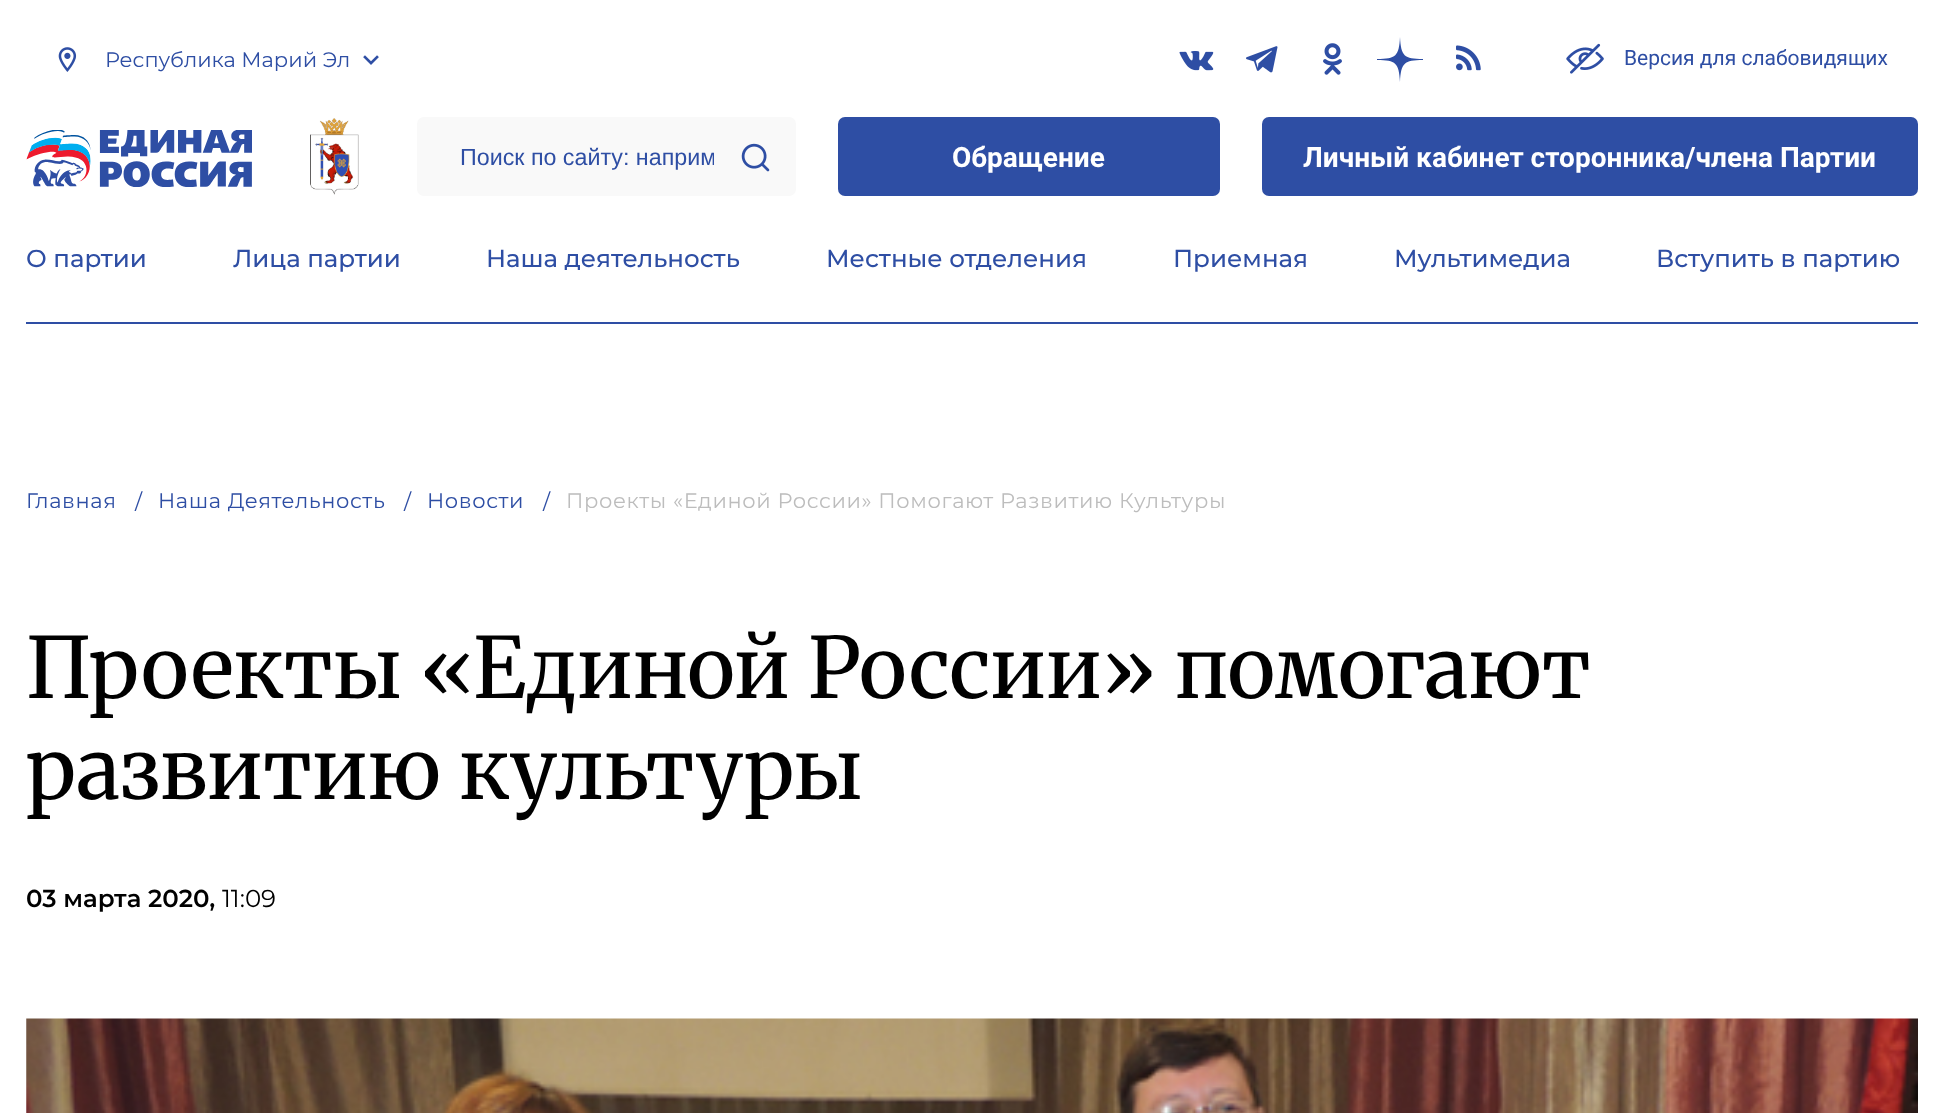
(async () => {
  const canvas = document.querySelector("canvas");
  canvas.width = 1944;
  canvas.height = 1113;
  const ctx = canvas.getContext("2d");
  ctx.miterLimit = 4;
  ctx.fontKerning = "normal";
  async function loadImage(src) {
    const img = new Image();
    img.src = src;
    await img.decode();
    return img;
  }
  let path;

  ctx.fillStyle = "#ffffff";
  ctx.fillRect(0, 0, 1944, 1113);
  ctx.drawImage(await loadImage("img/1.png"), 58, 47, 19, 25);
  ctx.drawImage(await loadImage("img/2.png"), 363, 55, 16, 10);
  ctx.drawImage(await loadImage("img/3.png"), 1179, 51, 35, 20);
  ctx.drawImage(await loadImage("img/4.png"), 1246, 46, 32, 27);
  ctx.drawImage(await loadImage("img/5.png"), 1323, 43, 19, 32);
  ctx.fillStyle = "#2e4ea4";
  path = new Path2D("M1423 60V59C1404 59 1401 56 1400 37C1399 56 1396 59 1377 59V60C1396 60 1399 63 1400 82C1401 63 1404 60 1423 60");
  ctx.fill(path);
  ctx.drawImage(await loadImage("img/6.png"), 1456, 45, 25, 26);
  ctx.drawImage(await loadImage("img/7.png"), 1566, 43, 38, 31);
  ctx.drawImage(await loadImage("img/8.png"), 26, 130, 226, 57);
  ctx.drawImage(await loadImage("img/9.png"), 310, 118, 49, 77);
  ctx.fillStyle = "#f9f9f9";
  ctx.beginPath();
  ctx.roundRect(417, 117, 379, 79, 7);
  ctx.fill();
  ctx.drawImage(await loadImage("img/10.png"), 741, 143, 29, 29);
  ctx.fillStyle = "#2e4ea4";
  ctx.beginPath();
  ctx.roundRect(838, 117, 382, 79, 7);
  ctx.fill();
  ctx.beginPath();
  ctx.roundRect(1262, 117, 656, 79, 7);
  ctx.fill();
  ctx.fillRect(26, 322, 1892, 2);
  ctx.drawImage(await loadImage("img/11.png"), 26, 1018, 1892, 95);
  ctx.font = "21px Montserrat";
  ctx.fillText("Республика Марий Эл", 105, 67);
  ctx.font = "21px Roboto";
  ctx.fillText("Версия для слабовидящих", 1624, 65);
  ctx.save();
  ctx.beginPath();
  ctx.rect(460, 144, 254, 26);
  ctx.clip();
  ctx.font = "23.25px Liberation Sans";
  ctx.fillText("Поиск по сайту: наприм", 460, 165);
  ctx.restore();
  ctx.font = "bold 28px Roboto";
  ctx.fillStyle = "#ffffff";
  ctx.fillText("Обращение", 952, 167);
  ctx.fillText("Личный кабинет сторонника/члена Партии", 1303, 167);
  ctx.font = "500 24.5px Montserrat";
  ctx.fillStyle = "#2e4ea4";
  for (const [text, x, y] of [
    ["О партии", 26, 267],
    ["Лица партии", 233, 267],
    ["Наша деятельность", 486, 267],
    ["Местные отделения", 826, 267],
    ["Приемная", 1173, 267],
    ["Мультимедиа", 1394, 267],
    ["Вступить в партию", 1656, 267],
  ]) {
    ctx.fillText(text, x, y);
  }
  ctx.letterSpacing = "0.63px";
  ctx.font = "21px Montserrat";
  for (const [text, x, y] of [
    ["Главная", 26, 508],
    ["/", 135, 509],
    ["Наша Деятельность", 158, 508],
    ["/", 404, 509],
    ["Новости", 427, 508],
    ["/", 543, 509],
  ]) {
    ctx.fillText(text, x, y);
  }
  ctx.fillStyle = "#bdbdbd";
  ctx.fillText("Проекты «Единой России» Помогают Развитию Культуры", 566, 508);
  ctx.letterSpacing = "0px";
  ctx.font = "84px Merriweather";
  ctx.fillStyle = "#000000";
  ctx.fillText("Проекты «Единой России» помогают", 26, 698);
  ctx.fillText("развитию культуры", 26, 799);
  ctx.font = "600 24.5px Montserrat";
  ctx.fillText("03 марта 2020,", 26, 907);
  ctx.font = "24.5px Montserrat";
  ctx.fillText("11:09", 222, 907);
})();
